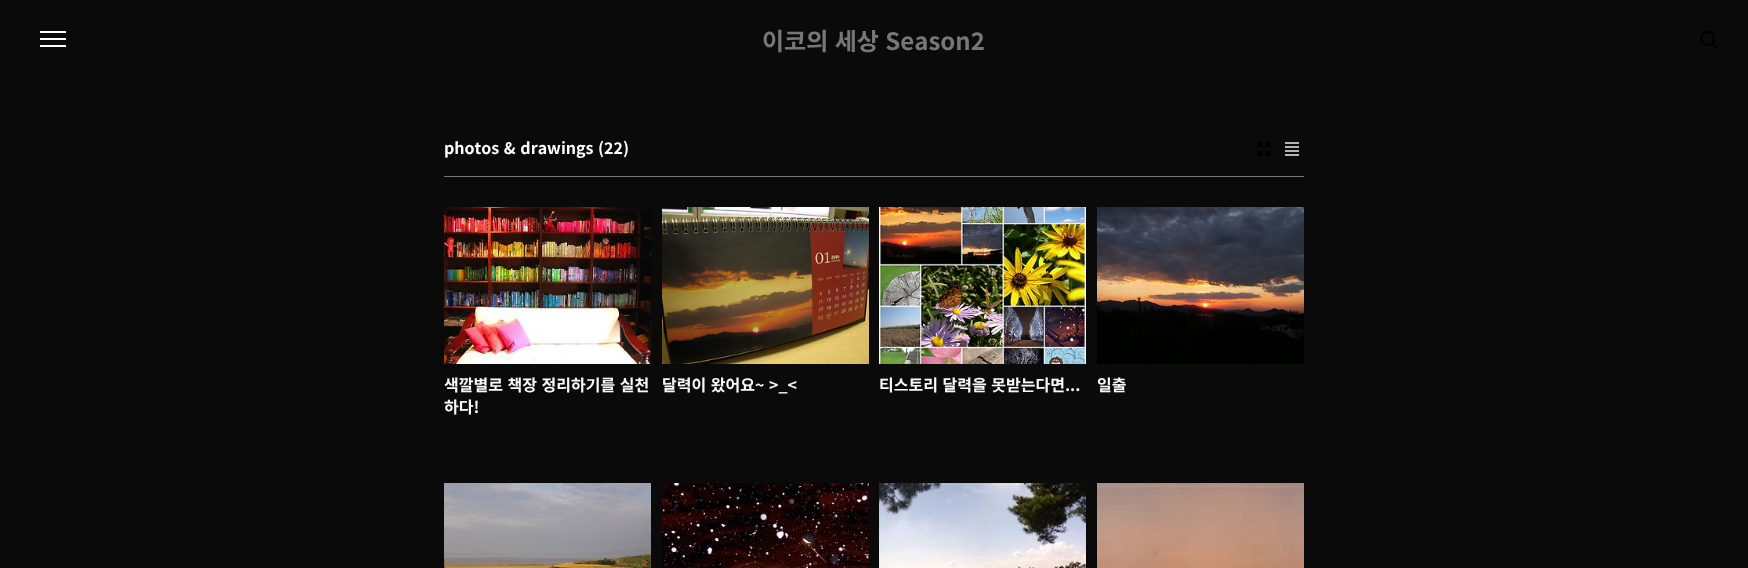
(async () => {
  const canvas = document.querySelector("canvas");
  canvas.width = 1748;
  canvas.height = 568;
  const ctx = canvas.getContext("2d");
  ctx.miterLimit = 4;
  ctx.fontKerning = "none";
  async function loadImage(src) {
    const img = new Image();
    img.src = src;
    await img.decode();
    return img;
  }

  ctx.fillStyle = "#0a0a0a";
  ctx.fillRect(0, 0, 1748, 568);
  for (const [x, y, w, h, color] of [
    [40, 31, 26, 2, "#ffffff"],
    [40, 38, 26, 2, "#ffffff"],
    [40, 45, 26, 2, "#ffffff"],
  ]) {
    ctx.fillStyle = color;
    ctx.fillRect(x, y, w, h);
  }
  ctx.drawImage(await loadImage("img/1.png"), 1700, 31, 18, 18);
  ctx.fillStyle = "#777777";
  ctx.fillRect(444, 176, 860, 1);
  ctx.drawImage(await loadImage("img/2.png"), 1257, 142, 14, 14);
  ctx.drawImage(await loadImage("img/3.png"), 1285, 142, 14, 14);
  ctx.drawImage(await loadImage("img/4.png"), 444, 207, 207, 157);
  ctx.drawImage(await loadImage("img/5.png"), 662, 207, 207, 157);
  ctx.drawImage(await loadImage("img/6.png"), 879, 207, 207, 157);
  ctx.drawImage(await loadImage("img/7.png"), 1097, 207, 207, 157);
  ctx.drawImage(await loadImage("img/8.png"), 444, 483, 207, 85);
  ctx.drawImage(await loadImage("img/9.png"), 662, 483, 207, 85);
  ctx.drawImage(await loadImage("img/10.png"), 879, 483, 207, 85);
  ctx.drawImage(await loadImage("img/11.png"), 1097, 483, 207, 85);
  ctx.wordSpacing = "1px";
  ctx.font = "bold 24px Noto Sans KR";
  ctx.fillText("이코의 세상 Season2", 762, 50);
  ctx.font = "bold 16px Noto Sans KR";
  ctx.fillStyle = "#ffffff";
  ctx.fillText("photos & drawings", 444, 154);
  ctx.wordSpacing = "0px";
  ctx.fillText("(22)", 598, 154);
  ctx.wordSpacing = "1px";
  ctx.fillStyle = "#f8f8f8";
  ctx.fillText("색깔별로 책장 정리하기를 실천", 444, 391);
  ctx.wordSpacing = "0px";
  ctx.fillText("하다!", 444, 413);
  ctx.wordSpacing = "1px";
  ctx.fillText("달력이 왔어요~ >_<", 662, 391);
  ctx.fillText("티스토리 달력을 못받는다면...", 879, 391);
  ctx.wordSpacing = "0px";
  ctx.fillText("일출", 1097, 391);
})();
